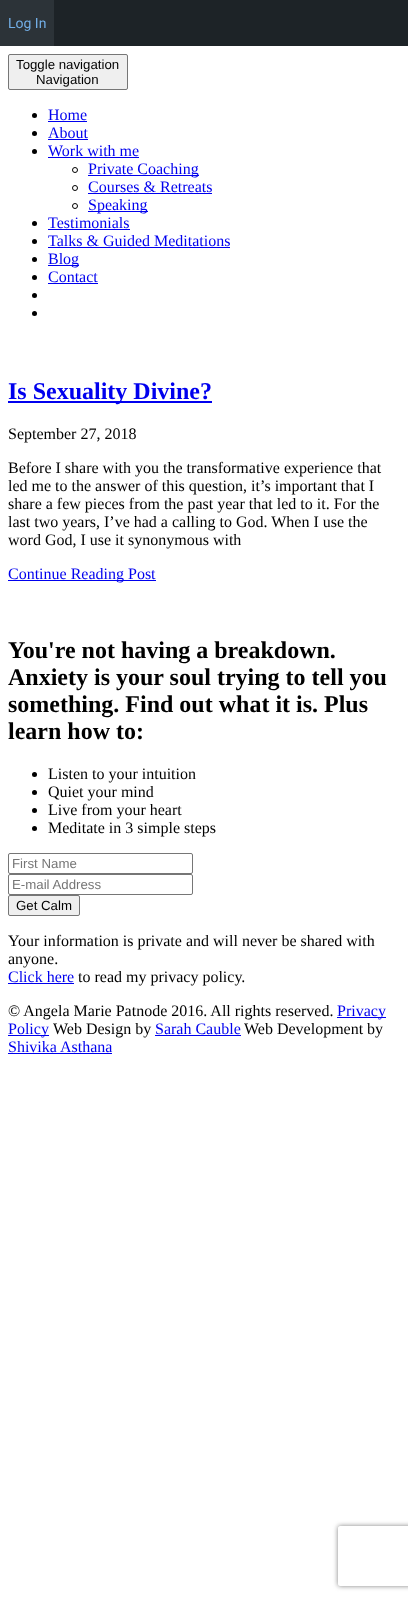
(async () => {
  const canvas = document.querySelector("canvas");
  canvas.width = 408;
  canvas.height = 1600;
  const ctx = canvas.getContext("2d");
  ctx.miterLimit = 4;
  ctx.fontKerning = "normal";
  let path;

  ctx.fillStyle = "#ffffff";
  ctx.fillRect(0, 0, 408, 1600);
  ctx.fillStyle = "#1d2327";
  ctx.fillRect(54, 0, 354, 46);
  ctx.fillStyle = "#2c3338";
  ctx.fillRect(0, 0, 54, 46);
  ctx.fillStyle = "#efefef";
  ctx.beginPath();
  ctx.roundRect(8.5, 54.5, 119, 35, 1.5);
  ctx.fill();
  ctx.strokeStyle = "#767676";
  ctx.stroke();
  ctx.fillStyle = "#000000";
  ctx.beginPath();
  ctx.arc(34.5, 115.5, 2.5, 0, Math.PI * 2);
  ctx.fill();
  ctx.fillStyle = "#0000ee";
  ctx.fillRect(48, 121, 39, 1);
  ctx.fillStyle = "#000000";
  ctx.beginPath();
  ctx.arc(34.5, 133.5, 2.5, 0, Math.PI * 2);
  ctx.fill();
  ctx.fillStyle = "#0000ee";
  ctx.fillRect(48, 139, 40, 1);
  ctx.fillStyle = "#000000";
  ctx.beginPath();
  ctx.arc(34.5, 151.5, 2.5, 0, Math.PI * 2);
  ctx.fill();
  ctx.fillStyle = "#0000ee";
  ctx.fillRect(48, 157, 91, 1);
  ctx.beginPath();
  ctx.arc(75, 170, 2.5, 0, Math.PI * 2);
  ctx.strokeStyle = "#000000";
  ctx.stroke();
  ctx.fillRect(88, 175, 111, 1);
  ctx.beginPath();
  ctx.arc(75, 188, 2.5, 0, Math.PI * 2);
  ctx.stroke();
  ctx.fillRect(88, 193, 124, 1);
  ctx.beginPath();
  ctx.arc(75, 206, 2.5, 0, Math.PI * 2);
  ctx.stroke();
  ctx.fillRect(88, 211, 60, 1);
  ctx.fillStyle = "#000000";
  ctx.beginPath();
  ctx.arc(34.5, 223.5, 2.5, 0, Math.PI * 2);
  ctx.fill();
  ctx.fillStyle = "#0000ee";
  ctx.fillRect(48, 229, 82, 1);
  ctx.fillStyle = "#000000";
  ctx.beginPath();
  ctx.arc(34.5, 241.5, 2.5, 0, Math.PI * 2);
  ctx.fill();
  ctx.fillStyle = "#0000ee";
  ctx.fillRect(48, 247, 182, 1);
  ctx.fillStyle = "#000000";
  ctx.beginPath();
  ctx.arc(34.5, 259.5, 2.5, 0, Math.PI * 2);
  ctx.fill();
  ctx.fillStyle = "#0000ee";
  ctx.fillRect(48, 265, 31, 1);
  ctx.fillStyle = "#000000";
  ctx.beginPath();
  ctx.arc(34.5, 277.5, 2.5, 0, Math.PI * 2);
  ctx.fill();
  ctx.fillStyle = "#0000ee";
  ctx.fillRect(48, 283, 50, 1);
  ctx.fillStyle = "#000000";
  ctx.beginPath();
  ctx.arc(34.5, 295.5, 2.5, 0, Math.PI * 2);
  ctx.fill();
  ctx.beginPath();
  ctx.arc(34.5, 313.5, 2.5, 0, Math.PI * 2);
  ctx.fill();
  ctx.fillStyle = "#0000ee";
  ctx.fillRect(8, 401, 204, 2);
  ctx.fillRect(8, 580, 148, 1);
  ctx.fillStyle = "#000000";
  ctx.beginPath();
  ctx.arc(34.5, 774.5, 2.5, 0, Math.PI * 2);
  ctx.fill();
  ctx.beginPath();
  ctx.arc(34.5, 792.5, 2.5, 0, Math.PI * 2);
  ctx.fill();
  ctx.beginPath();
  ctx.arc(34.5, 810.5, 2.5, 0, Math.PI * 2);
  ctx.fill();
  ctx.beginPath();
  ctx.arc(34.5, 828.5, 2.5, 0, Math.PI * 2);
  ctx.fill();
  ctx.beginPath();
  ctx.roundRect(8.5, 853.5, 184, 20, 1.5);
  ctx.strokeStyle = "#767676";
  ctx.stroke();
  ctx.beginPath();
  ctx.roundRect(8.5, 874.5, 184, 20, 1.5);
  ctx.stroke();
  ctx.fillStyle = "#efefef";
  ctx.beginPath();
  ctx.roundRect(8.5, 895.5, 71, 20, 1.5);
  ctx.fill();
  ctx.stroke();
  for (const [x, y, w, h, color] of [
    [8, 983, 66, 1, "#0000ee"],
    [337, 1017, 49, 1, "#0000ee"],
    [8, 1035, 41, 1, "#0000ee"],
    [155, 1035, 86, 1, "#0000ee"],
    [8, 1053, 104, 1, "#0000ee"],
  ]) {
    ctx.fillStyle = color;
    ctx.fillRect(x, y, w, h);
  }
  ctx.save();
  path = new Path2D("M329 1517H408V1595H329ZM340 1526H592C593 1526 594 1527 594 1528V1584C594 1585 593 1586 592 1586H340C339 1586 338 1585 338 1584V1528C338 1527 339 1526 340 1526Z");
  ctx.clip(path, "evenodd");
  ctx.fillStyle = "#808080";
  ctx.filter = "blur(2.5px)";
  ctx.beginPath();
  ctx.roundRect(338, 1526, 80, 60, 2);
  ctx.fill();
  ctx.filter = "none";
  ctx.restore();
  ctx.font = "14px Roboto";
  ctx.fillStyle = "#72aee6";
  ctx.fillText("Log In", 8, 28);
  ctx.font = "13.25px Liberation Sans";
  ctx.fillStyle = "#000000";
  ctx.fillText("Toggle navigation", 16, 69);
  ctx.fillText("Navigation", 36, 84);
  ctx.font = "16px Liberation Serif";
  ctx.fillStyle = "#0000ee";
  for (const [text, x, y] of [
    ["Home", 48, 120],
    ["About", 48, 138],
    ["Work with me", 48, 156],
    ["Private Coaching", 88, 174],
    ["Courses & Retreats", 88, 192],
    ["Speaking", 88, 210],
    ["Testimonials", 48, 228],
    ["Talks & Guided Meditations", 48, 246],
    ["Blog", 48, 264],
    ["Contact", 48, 282],
  ]) {
    ctx.fillText(text, x, y);
  }
  ctx.font = "bold 24px Liberation Serif";
  ctx.fillText("Is Sexuality Divine?", 8, 399);
  ctx.font = "16px Liberation Serif";
  ctx.fillStyle = "#000000";
  for (const [text, x, y] of [
    ["September 27, 2018", 8, 439],
    ["Before I share with you the transformative experience that", 8, 473],
    ["led me to the answer of this question, it’s important that I", 8, 491],
    ["share a few pieces from the past year that led to it. For the", 8, 509],
    ["last two years, I’ve had a calling to God. When I use the", 8, 527],
    ["word God, I use it synonymous with", 8, 545],
  ]) {
    ctx.fillText(text, x, y);
  }
  ctx.fillStyle = "#0000ee";
  ctx.fillText("Continue Reading Post", 8, 579);
  ctx.font = "bold 24px Liberation Serif";
  ctx.fillStyle = "#000000";
  for (const [text, x, y] of [
    ["You're not having a breakdown.", 8, 658],
    ["Anxiety is your soul trying to tell you", 8, 685],
    ["something. Find out what it is. Plus", 8, 712],
    ["learn how to:", 8, 739],
  ]) {
    ctx.fillText(text, x, y);
  }
  ctx.font = "16px Liberation Serif";
  for (const [text, x, y] of [
    ["Listen to your intuition", 48, 779],
    ["Quiet your mind", 48, 797],
    ["Live from your heart", 48, 815],
    ["Meditate in 3 simple steps", 48, 833],
  ]) {
    ctx.fillText(text, x, y);
  }
  ctx.font = "13.25px Liberation Sans";
  ctx.fillStyle = "#757575";
  ctx.fillText("First Name", 12, 868);
  ctx.fillText("E-mail Address", 12, 889);
  ctx.fillStyle = "#000000";
  ctx.fillText("Get Calm", 16, 910);
  ctx.font = "16px Liberation Serif";
  ctx.fillText("Your information is private and will never be shared with", 8, 946);
  ctx.fillText("anyone.", 8, 964);
  ctx.fillStyle = "#0000ee";
  ctx.fillText("Click here", 8, 982);
  ctx.fillStyle = "#000000";
  ctx.fillText("to read my privacy policy.", 78, 982);
  ctx.fillText("© Angela Marie Patnode 2016. All rights reserved.", 8, 1016);
  ctx.fillStyle = "#0000ee";
  ctx.fillText("Privacy", 337, 1016);
  ctx.fillText("Policy", 8, 1034);
  ctx.fillStyle = "#000000";
  ctx.fillText("Web Design by", 53, 1034);
  ctx.fillStyle = "#0000ee";
  ctx.fillText("Sarah Cauble", 155, 1034);
  ctx.fillStyle = "#000000";
  ctx.fillText("Web Development by", 244, 1034);
  ctx.fillStyle = "#0000ee";
  ctx.fillText("Shivika Asthana", 8, 1052);
})();
